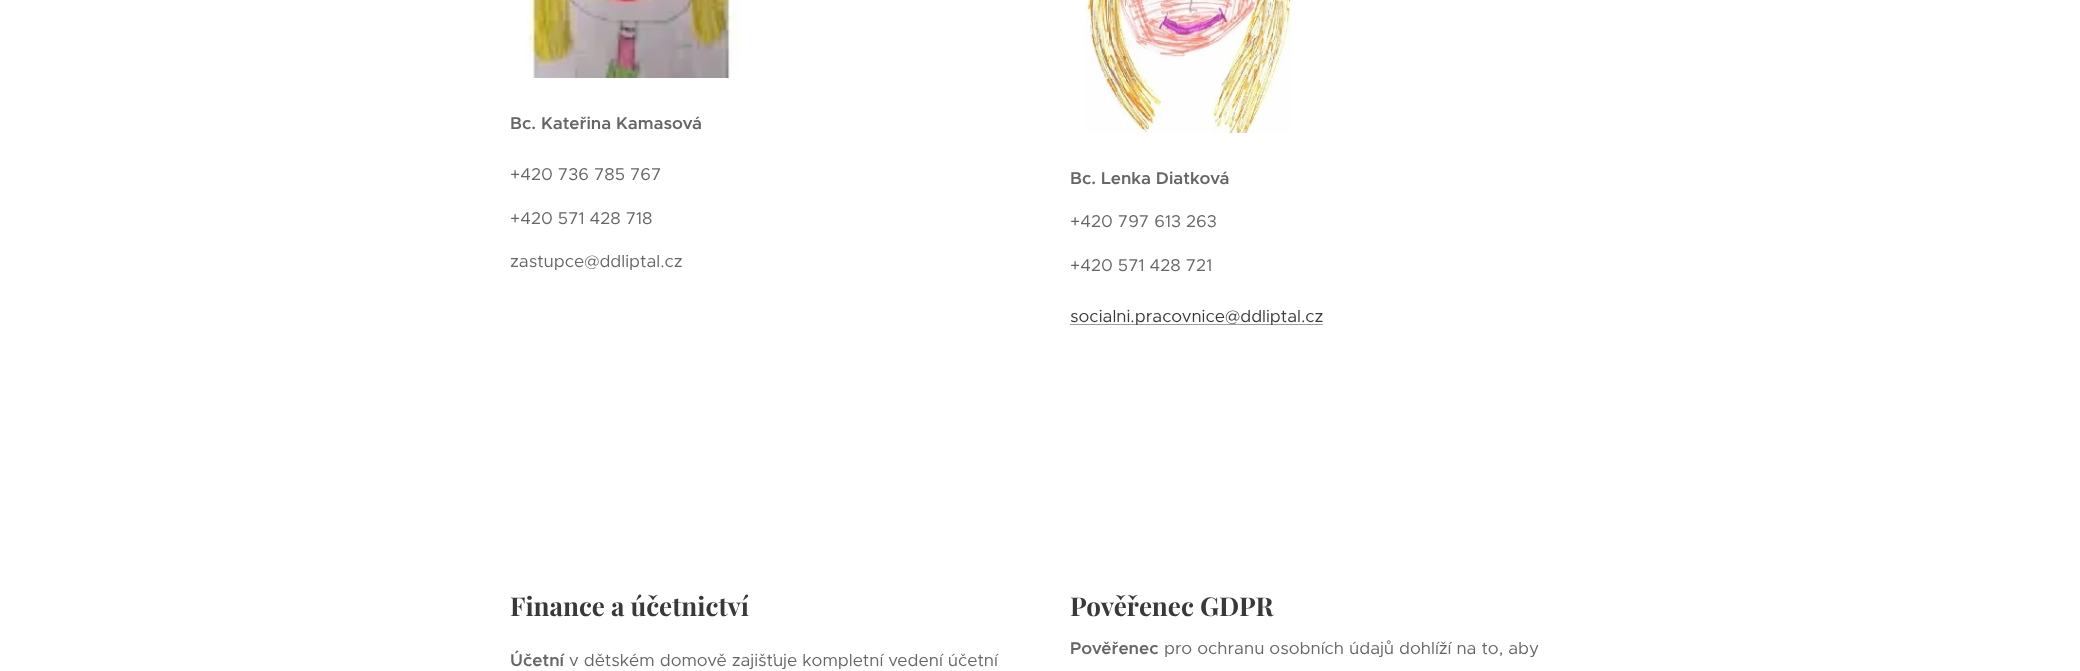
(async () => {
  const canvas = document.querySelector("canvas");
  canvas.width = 2080;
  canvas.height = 671;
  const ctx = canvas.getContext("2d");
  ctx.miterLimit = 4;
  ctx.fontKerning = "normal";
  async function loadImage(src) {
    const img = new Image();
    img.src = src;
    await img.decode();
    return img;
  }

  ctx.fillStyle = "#ffffff";
  ctx.fillRect(0, 0, 2080, 671);
  ctx.drawImage(await loadImage("img/1.png"), 526, 0, 214, 78);
  ctx.drawImage(await loadImage("img/2.png"), 1085, 0, 207, 133);
  ctx.fillStyle = "#9c9c9c";
  ctx.fillRect(1070, 324, 253, 1);
  ctx.font = "600 17.2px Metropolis";
  ctx.fillStyle = "#666666";
  ctx.fillText("Bc. Kateřina Kamasová", 510, 129);
  ctx.font = "17.2px Metropolis";
  for (const [text, x, y] of [
    ["+420 736 785 767", 510, 180],
    ["+420 571 428 718", 510, 224],
    ["zastupce@ddliptal.cz", 510, 267],
  ]) {
    ctx.fillText(text, x, y);
  }
  ctx.font = "600 17.2px Metropolis";
  ctx.fillText("Bc. Lenka Diatková", 1070, 184);
  ctx.font = "17.2px Metropolis";
  ctx.fillText("+420 797 613 263", 1070, 227);
  ctx.fillText("+420 571 428 721", 1070, 271);
  ctx.fillStyle = "#393939";
  ctx.fillText("socialni.pracovnice@ddliptal.cz", 1070, 322);
  ctx.font = "bold 26px Playfair Display";
  ctx.fillText("Finance a účetnictví", 510, 616);
  ctx.font = "600 17.2px Metropolis";
  ctx.fillStyle = "#666666";
  ctx.fillText("Účetní", 510, 666);
  ctx.font = "17.2px Metropolis";
  ctx.fillText("v dětském domově zajišťuje kompletní vedení účetní", 569, 666);
  ctx.font = "bold 26px Playfair Display";
  ctx.fillStyle = "#393939";
  ctx.fillText("Pověřenec GDPR", 1070, 616);
  ctx.font = "600 17.2px Metropolis";
  ctx.fillStyle = "#666666";
  ctx.fillText("Pověřenec", 1070, 654);
  ctx.font = "17.2px Metropolis";
  ctx.fillText("pro ochranu osobních údajů dohlíží na to, aby", 1164, 654);
})();
